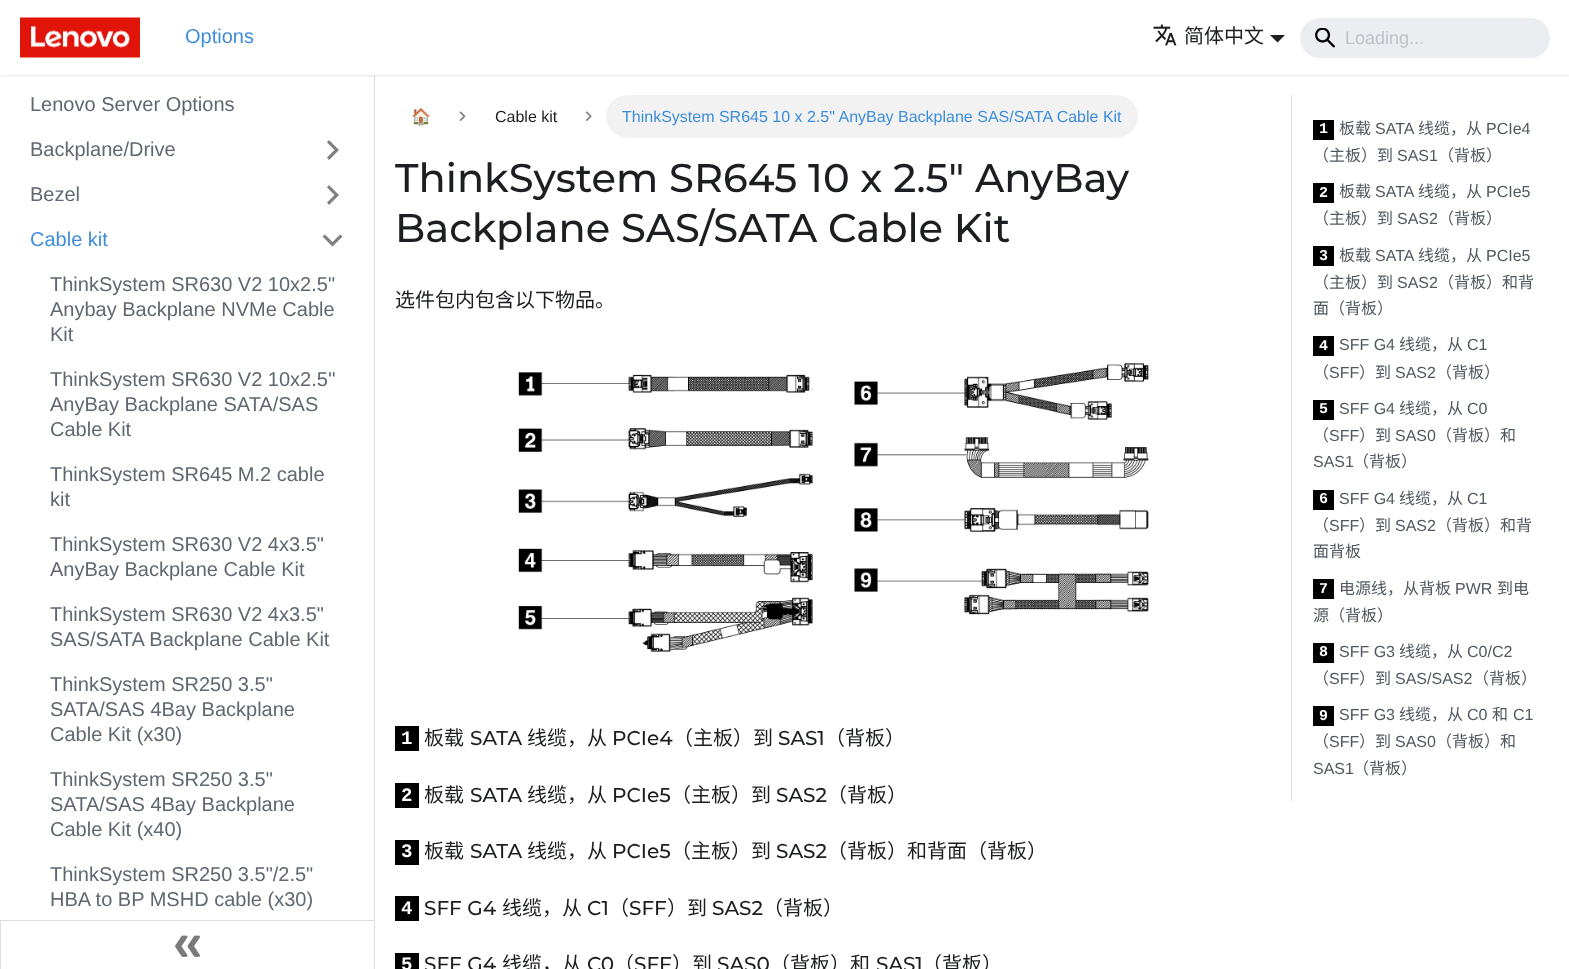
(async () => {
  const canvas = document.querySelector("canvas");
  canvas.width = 1569;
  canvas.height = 969;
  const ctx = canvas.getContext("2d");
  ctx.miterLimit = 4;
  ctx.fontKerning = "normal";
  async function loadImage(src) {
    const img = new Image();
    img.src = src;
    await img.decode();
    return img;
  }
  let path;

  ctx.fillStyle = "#ffffff";
  ctx.fillRect(0, 0, 1569, 969);
  ctx.fillStyle = "#dadde1";
  ctx.fillRect(374, 75, 1, 845);
  ctx.fillStyle = "rgba(0, 0, 0, 0.1)";
  ctx.filter = "blur(1px)";
  ctx.beginPath();
  ctx.rect(0, 1, 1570, 75);
  ctx.fill();
  ctx.filter = "none";
  ctx.fillStyle = "#ffffff";
  ctx.fillRect(0, 0, 1569, 75);
  ctx.drawImage(await loadImage("img/1.png"), 20, 17, 120, 41);
  ctx.drawImage(await loadImage("img/2.png"), 1153, 24, 24, 22);
  ctx.fillStyle = "#1c1e21";
  path = new Path2D("M1270 35H1285L1277.5 42.5Z");
  ctx.fill(path);
  ctx.fillStyle = "#ebedf0";
  ctx.beginPath();
  ctx.roundRect(1300, 18, 250, 40, 20);
  ctx.fill();
  ctx.drawImage(await loadImage("img/3.png"), 1315, 28, 20, 20);
  ctx.fillStyle = "#808080";
  path = new Path2D("M327 142.5L334.5 150L327 157.5L329 160L339 150L329 140Z");
  ctx.fill(path);
  path = new Path2D("M327 187.5L334.5 195L327 202.5L329 205L339 195L329 185Z");
  ctx.fill(path);
  path = new Path2D("M340 234.5L332.5 242L325 234.5L322.5 236.5L332.5 246.5L342.5 236.5Z");
  ctx.fill(path);
  ctx.strokeStyle = "#dadde1";
  ctx.strokeRect(0.5, 920.5, 374, 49);
  ctx.drawImage(await loadImage("img/4.png"), 175, 935, 25, 22);
  ctx.drawImage(await loadImage("img/5.png"), 459, 111, 7, 10);
  ctx.drawImage(await loadImage("img/6.png"), 585, 111, 7, 10);
  ctx.fillStyle = "#f2f2f2";
  ctx.beginPath();
  ctx.roundRect(606, 95, 532, 43, 21.5);
  ctx.fill();
  ctx.drawImage(await loadImage("img/7.png"), 518, 363, 631, 289);
  for (const [x, y, w, h, color] of [
    [395, 726, 24, 25, "#000000"],
    [395, 783, 24, 25, "#000000"],
    [395, 840, 24, 25, "#000000"],
    [395, 896, 24, 25, "#000000"],
    [395, 953, 24, 16, "#000000"],
    [1291, 95, 1, 706, "#dadde1"],
    [1313, 120, 21, 20, "#000000"],
    [1313, 183, 21, 20, "#000000"],
    [1313, 246, 21, 20, "#000000"],
    [1313, 336, 21, 20, "#000000"],
    [1313, 400, 21, 20, "#000000"],
    [1313, 490, 21, 20, "#000000"],
    [1313, 579, 21, 20, "#000000"],
    [1313, 643, 21, 20, "#000000"],
    [1313, 706, 21, 20, "#000000"],
  ]) {
    ctx.fillStyle = color;
    ctx.fillRect(x, y, w, h);
  }
  ctx.font = "20px Liberation Sans";
  ctx.fillStyle = "#3e8ddd";
  ctx.fillText("Options", 185, 43);
  ctx.font = "20px Noto Sans CJK SC";
  ctx.fillStyle = "#1c1e21";
  ctx.fillText("简体中文", 1184, 43);
  ctx.font = "18px Liberation Sans";
  ctx.fillStyle = "#bec3c9";
  ctx.fillText("Loading...", 1345, 44);
  ctx.font = "20px Liberation Sans";
  ctx.fillStyle = "#606770";
  for (const [text, x, y] of [
    ["Lenovo Server Options", 30, 111],
    ["Backplane/Drive", 30, 156],
    ["Bezel", 30, 201],
  ]) {
    ctx.fillText(text, x, y);
  }
  ctx.fillStyle = "#3e8ddd";
  ctx.fillText("Cable kit", 30, 246);
  ctx.fillStyle = "#606770";
  for (const [text, x, y] of [
    ["ThinkSystem SR630 V2 10x2.5\"", 50, 291],
    ["Anybay Backplane NVMe Cable", 50, 316],
    ["Kit", 50, 341],
    ["ThinkSystem SR630 V2 10x2.5''", 50, 386],
    ["AnyBay Backplane SATA/SAS", 50, 411],
    ["Cable Kit", 50, 436],
    ["ThinkSystem SR645 M.2 cable", 50, 481],
    ["kit", 50, 506],
    ["ThinkSystem SR630 V2 4x3.5\"", 50, 551],
    ["AnyBay Backplane Cable Kit", 50, 576],
    ["ThinkSystem SR630 V2 4x3.5\"", 50, 621],
    ["SAS/SATA Backplane Cable Kit", 50, 646],
    ["ThinkSystem SR250 3.5\"", 50, 691],
    ["SATA/SAS 4Bay Backplane", 50, 716],
    ["Cable Kit (x30)", 50, 741],
    ["ThinkSystem SR250 3.5\"", 50, 786],
    ["SATA/SAS 4Bay Backplane", 50, 811],
    ["Cable Kit (x40)", 50, 836],
    ["ThinkSystem SR250 3.5\"/2.5\"", 50, 881],
    ["HBA to BP MSHD cable (x30)", 50, 906],
  ]) {
    ctx.fillText(text, x, y);
  }
  ctx.font = "16px Noto Color Emoji";
  ctx.fillStyle = "#1c1e21";
  ctx.fillText("🏠", 411, 122);
  ctx.font = "16px Liberation Sans";
  ctx.fillText("Cable kit", 495, 122);
  ctx.fillStyle = "#3e8ddd";
  ctx.fillText("ThinkSystem SR645 10 x 2.5\" AnyBay Backplane SAS/SATA Cable Kit", 622, 122);
  ctx.font = "500 40px Montserrat";
  ctx.fillStyle = "#1c1e21";
  ctx.fillText("ThinkSystem SR645 10 x 2.5\" AnyBay", 395, 192);
  ctx.fillText("Backplane SAS/SATA Cable Kit", 395, 242);
  ctx.font = "20px Noto Sans CJK SC";
  ctx.fillText("选件包内包含以下物品。", 395, 307);
  ctx.font = "bold 19px Liberation Mono";
  ctx.fillStyle = "#ffffff";
  ctx.fillText("1", 401, 744);
  ctx.font = "20px Noto Sans CJK SC";
  ctx.fillStyle = "#1c1e21";
  ctx.fillText("板载", 424, 745);
  ctx.font = "500 20px Montserrat";
  ctx.fillText("SATA", 470, 745);
  ctx.font = "20px Noto Sans CJK SC";
  ctx.fillText("线缆，从", 527, 745);
  ctx.font = "500 20px Montserrat";
  ctx.fillText("PCIe4", 612, 745);
  ctx.font = "20px Noto Sans CJK SC";
  ctx.fillText("（主板）到", 673, 745);
  ctx.font = "500 20px Montserrat";
  ctx.fillText("SAS1", 778, 745);
  ctx.font = "20px Noto Sans CJK SC";
  ctx.fillText("（背板）", 825, 745);
  ctx.font = "bold 19px Liberation Mono";
  ctx.fillStyle = "#ffffff";
  ctx.fillText("2", 401, 801);
  ctx.font = "20px Noto Sans CJK SC";
  ctx.fillStyle = "#1c1e21";
  ctx.fillText("板载", 424, 802);
  ctx.font = "500 20px Montserrat";
  ctx.fillText("SATA", 470, 802);
  ctx.font = "20px Noto Sans CJK SC";
  ctx.fillText("线缆，从", 527, 802);
  ctx.font = "500 20px Montserrat";
  ctx.fillText("PCIe5", 612, 802);
  ctx.font = "20px Noto Sans CJK SC";
  ctx.fillText("（主板）到", 671, 802);
  ctx.font = "500 20px Montserrat";
  ctx.fillText("SAS2", 776, 802);
  ctx.font = "20px Noto Sans CJK SC";
  ctx.fillText("（背板）", 827, 802);
  ctx.font = "bold 19px Liberation Mono";
  ctx.fillStyle = "#ffffff";
  ctx.fillText("3", 401, 857);
  ctx.font = "20px Noto Sans CJK SC";
  ctx.fillStyle = "#1c1e21";
  ctx.fillText("板载", 424, 858);
  ctx.font = "500 20px Montserrat";
  ctx.fillText("SATA", 470, 858);
  ctx.font = "20px Noto Sans CJK SC";
  ctx.fillText("线缆，从", 527, 858);
  ctx.font = "500 20px Montserrat";
  ctx.fillText("PCIe5", 612, 858);
  ctx.font = "20px Noto Sans CJK SC";
  ctx.fillText("（主板）到", 671, 858);
  ctx.font = "500 20px Montserrat";
  ctx.fillText("SAS2", 776, 858);
  ctx.font = "20px Noto Sans CJK SC";
  ctx.fillText("（背板）和背面（背板）", 827, 858);
  ctx.font = "bold 19px Liberation Mono";
  ctx.fillStyle = "#ffffff";
  ctx.fillText("4", 401, 914);
  ctx.font = "500 20px Montserrat";
  ctx.fillStyle = "#1c1e21";
  ctx.fillText("SFF G4", 424, 915);
  ctx.font = "20px Noto Sans CJK SC";
  ctx.fillText("线缆，从", 502, 915);
  ctx.font = "500 20px Montserrat";
  ctx.fillText("C1", 587, 915);
  ctx.font = "20px Noto Sans CJK SC";
  ctx.fillText("（", 609, 915);
  ctx.font = "500 20px Montserrat";
  ctx.fillText("SFF", 629, 915);
  ctx.font = "20px Noto Sans CJK SC";
  ctx.fillText("）到", 667, 915);
  ctx.font = "500 20px Montserrat";
  ctx.fillText("SAS2", 712, 915);
  ctx.font = "20px Noto Sans CJK SC";
  ctx.fillText("（背板）", 763, 915);
  ctx.font = "bold 19px Liberation Mono";
  ctx.fillStyle = "#ffffff";
  ctx.fillText("5", 401, 970);
  ctx.font = "500 20px Montserrat";
  ctx.fillStyle = "#1c1e21";
  ctx.fillText("SFF G4", 424, 971);
  ctx.font = "20px Noto Sans CJK SC";
  ctx.fillText("线缆，从", 502, 971);
  ctx.font = "500 20px Montserrat";
  ctx.fillText("C0", 587, 971);
  ctx.font = "20px Noto Sans CJK SC";
  ctx.fillText("（", 614, 971);
  ctx.font = "500 20px Montserrat";
  ctx.fillText("SFF", 634, 971);
  ctx.font = "20px Noto Sans CJK SC";
  ctx.fillText("）到", 672, 971);
  ctx.font = "500 20px Montserrat";
  ctx.fillText("SAS0", 717, 971);
  ctx.font = "20px Noto Sans CJK SC";
  ctx.fillText("（背板）和", 770, 971);
  ctx.font = "500 20px Montserrat";
  ctx.fillText("SAS1", 876, 971);
  ctx.font = "20px Noto Sans CJK SC";
  ctx.fillText("（背板）", 922, 971);
  ctx.font = "bold 15px Liberation Mono";
  ctx.fillStyle = "#ffffff";
  ctx.fillText("1", 1319, 133);
  ctx.font = "16px Noto Sans CJK SC";
  ctx.fillStyle = "#525860";
  ctx.fillText("板载", 1339, 134);
  ctx.font = "16px Liberation Sans";
  ctx.fillText("SATA", 1375, 134);
  ctx.font = "16px Noto Sans CJK SC";
  ctx.fillText("线缆，从", 1418, 134);
  ctx.font = "16px Liberation Sans";
  ctx.fillText("PCIe4", 1486, 134);
  ctx.font = "16px Noto Sans CJK SC";
  ctx.fillText("（主板）到", 1313, 161);
  ctx.font = "16px Liberation Sans";
  ctx.fillText("SAS1", 1397, 161);
  ctx.font = "16px Noto Sans CJK SC";
  ctx.fillText("（背板）", 1438, 161);
  ctx.font = "bold 15px Liberation Mono";
  ctx.fillStyle = "#ffffff";
  ctx.fillText("2", 1319, 197);
  ctx.font = "16px Noto Sans CJK SC";
  ctx.fillStyle = "#525860";
  ctx.fillText("板载", 1339, 197);
  ctx.font = "16px Liberation Sans";
  ctx.fillText("SATA", 1375, 197);
  ctx.font = "16px Noto Sans CJK SC";
  ctx.fillText("线缆，从", 1418, 197);
  ctx.font = "16px Liberation Sans";
  ctx.fillText("PCIe5", 1486, 197);
  ctx.font = "16px Noto Sans CJK SC";
  ctx.fillText("（主板）到", 1313, 224);
  ctx.font = "16px Liberation Sans";
  ctx.fillText("SAS2", 1397, 224);
  ctx.font = "16px Noto Sans CJK SC";
  ctx.fillText("（背板）", 1438, 224);
  ctx.font = "bold 15px Liberation Mono";
  ctx.fillStyle = "#ffffff";
  ctx.fillText("3", 1319, 260);
  ctx.font = "16px Noto Sans CJK SC";
  ctx.fillStyle = "#525860";
  ctx.fillText("板载", 1339, 261);
  ctx.font = "16px Liberation Sans";
  ctx.fillText("SATA", 1375, 261);
  ctx.font = "16px Noto Sans CJK SC";
  ctx.fillText("线缆，从", 1418, 261);
  ctx.font = "16px Liberation Sans";
  ctx.fillText("PCIe5", 1486, 261);
  ctx.font = "16px Noto Sans CJK SC";
  ctx.fillText("（主板）到", 1313, 288);
  ctx.font = "16px Liberation Sans";
  ctx.fillText("SAS2", 1397, 288);
  ctx.font = "16px Noto Sans CJK SC";
  ctx.fillText("（背板）和背", 1438, 288);
  ctx.fillText("面（背板）", 1313, 314);
  ctx.font = "bold 15px Liberation Mono";
  ctx.fillStyle = "#ffffff";
  ctx.fillText("4", 1319, 350);
  ctx.font = "16px Liberation Sans";
  ctx.fillStyle = "#525860";
  ctx.fillText("SFF G4", 1339, 350);
  ctx.font = "16px Noto Sans CJK SC";
  ctx.fillText("线缆，从", 1399, 350);
  ctx.font = "16px Liberation Sans";
  ctx.fillText("C1", 1467, 350);
  ctx.font = "16px Noto Sans CJK SC";
  ctx.fillText("（", 1313, 378);
  ctx.font = "16px Liberation Sans";
  ctx.fillText("SFF", 1329, 378);
  ctx.font = "16px Noto Sans CJK SC";
  ctx.fillText("）到", 1359, 378);
  ctx.font = "16px Liberation Sans";
  ctx.fillText("SAS2", 1395, 378);
  ctx.font = "16px Noto Sans CJK SC";
  ctx.fillText("（背板）", 1436, 378);
  ctx.font = "bold 15px Liberation Mono";
  ctx.fillStyle = "#ffffff";
  ctx.fillText("5", 1319, 413);
  ctx.font = "16px Liberation Sans";
  ctx.fillStyle = "#525860";
  ctx.fillText("SFF G4", 1339, 414);
  ctx.font = "16px Noto Sans CJK SC";
  ctx.fillText("线缆，从", 1399, 414);
  ctx.font = "16px Liberation Sans";
  ctx.fillText("C0", 1467, 414);
  ctx.font = "16px Noto Sans CJK SC";
  ctx.fillText("（", 1313, 441);
  ctx.font = "16px Liberation Sans";
  ctx.fillText("SFF", 1329, 441);
  ctx.font = "16px Noto Sans CJK SC";
  ctx.fillText("）到", 1359, 441);
  ctx.font = "16px Liberation Sans";
  ctx.fillText("SAS0", 1395, 441);
  ctx.font = "16px Noto Sans CJK SC";
  ctx.fillText("（背板）和", 1436, 441);
  ctx.font = "16px Liberation Sans";
  ctx.fillText("SAS1", 1313, 467);
  ctx.font = "16px Noto Sans CJK SC";
  ctx.fillText("（背板）", 1353, 467);
  ctx.font = "bold 15px Liberation Mono";
  ctx.fillStyle = "#ffffff";
  ctx.fillText("6", 1319, 503);
  ctx.font = "16px Liberation Sans";
  ctx.fillStyle = "#525860";
  ctx.fillText("SFF G4", 1339, 504);
  ctx.font = "16px Noto Sans CJK SC";
  ctx.fillText("线缆，从", 1399, 504);
  ctx.font = "16px Liberation Sans";
  ctx.fillText("C1", 1467, 504);
  ctx.font = "16px Noto Sans CJK SC";
  ctx.fillText("（", 1313, 531);
  ctx.font = "16px Liberation Sans";
  ctx.fillText("SFF", 1329, 531);
  ctx.font = "16px Noto Sans CJK SC";
  ctx.fillText("）到", 1359, 531);
  ctx.font = "16px Liberation Sans";
  ctx.fillText("SAS2", 1395, 531);
  ctx.font = "16px Noto Sans CJK SC";
  ctx.fillText("（背板）和背", 1436, 531);
  ctx.fillText("面背板", 1313, 557);
  ctx.font = "bold 15px Liberation Mono";
  ctx.fillStyle = "#ffffff";
  ctx.fillText("7", 1319, 593);
  ctx.font = "16px Noto Sans CJK SC";
  ctx.fillStyle = "#525860";
  ctx.fillText("电源线，从背板", 1339, 594);
  ctx.font = "16px Liberation Sans";
  ctx.fillText("PWR", 1455, 594);
  ctx.font = "16px Noto Sans CJK SC";
  ctx.fillText("到电", 1497, 594);
  ctx.fillText("源（背板）", 1313, 621);
  ctx.font = "bold 15px Liberation Mono";
  ctx.fillStyle = "#ffffff";
  ctx.fillText("8", 1319, 656);
  ctx.font = "16px Liberation Sans";
  ctx.fillStyle = "#525860";
  ctx.fillText("SFF G3", 1339, 657);
  ctx.font = "16px Noto Sans CJK SC";
  ctx.fillText("线缆，从", 1399, 657);
  ctx.font = "16px Liberation Sans";
  ctx.fillText("C0/C2", 1467, 657);
  ctx.font = "16px Noto Sans CJK SC";
  ctx.fillText("（", 1313, 684);
  ctx.font = "16px Liberation Sans";
  ctx.fillText("SFF", 1329, 684);
  ctx.font = "16px Noto Sans CJK SC";
  ctx.fillText("）到", 1359, 684);
  ctx.font = "16px Liberation Sans";
  ctx.fillText("SAS/SAS2", 1395, 684);
  ctx.font = "16px Noto Sans CJK SC";
  ctx.fillText("（背板）", 1473, 684);
  ctx.font = "bold 15px Liberation Mono";
  ctx.fillStyle = "#ffffff";
  ctx.fillText("9", 1319, 720);
  ctx.font = "16px Liberation Sans";
  ctx.fillStyle = "#525860";
  ctx.fillText("SFF G3", 1339, 720);
  ctx.font = "16px Noto Sans CJK SC";
  ctx.fillText("线缆，从", 1399, 720);
  ctx.font = "16px Liberation Sans";
  ctx.fillText("C0", 1467, 720);
  ctx.font = "16px Noto Sans CJK SC";
  ctx.fillText("和", 1492, 720);
  ctx.font = "16px Liberation Sans";
  ctx.fillText("C1", 1513, 720);
  ctx.font = "16px Noto Sans CJK SC";
  ctx.fillText("（", 1313, 747);
  ctx.font = "16px Liberation Sans";
  ctx.fillText("SFF", 1329, 747);
  ctx.font = "16px Noto Sans CJK SC";
  ctx.fillText("）到", 1359, 747);
  ctx.font = "16px Liberation Sans";
  ctx.fillText("SAS0", 1395, 747);
  ctx.font = "16px Noto Sans CJK SC";
  ctx.fillText("（背板）和", 1436, 747);
  ctx.font = "16px Liberation Sans";
  ctx.fillText("SAS1", 1313, 774);
  ctx.font = "16px Noto Sans CJK SC";
  ctx.fillText("（背板）", 1353, 774);
})();
